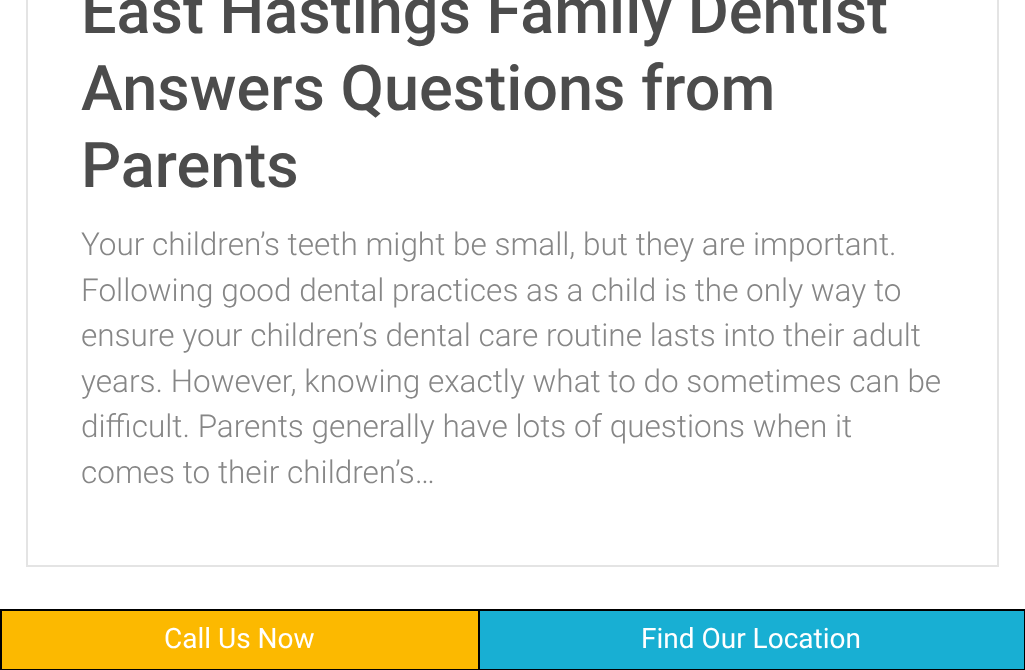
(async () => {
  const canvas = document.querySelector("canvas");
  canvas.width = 1025;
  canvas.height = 670;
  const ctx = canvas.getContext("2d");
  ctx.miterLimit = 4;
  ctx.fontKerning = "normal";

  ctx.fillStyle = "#ffffff";
  ctx.fillRect(0, 0, 1025, 670);
  ctx.strokeStyle = "#e4e4e4";
  ctx.lineWidth = 2;
  ctx.strokeRect(27, -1, 971, 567);
  for (const [x, y, w, h, color] of [
    [0, 609, 1025, 61, "#000000"],
    [2, 611, 476, 58, "#fcb900"],
    [480, 611, 544, 58, "#18afd3"],
  ]) {
    ctx.fillStyle = color;
    ctx.fillRect(x, y, w, h);
  }
  ctx.font = "500 63px Roboto";
  ctx.fillStyle = "#4c4c4c";
  for (const [text, x, y] of [
    ["East Hastings Family Dentist", 81, 33],
    ["Answers Questions from", 81, 110],
    ["Parents", 81, 187],
  ]) {
    ctx.fillText(text, x, y);
  }
  ctx.font = "300 31.5px Roboto";
  ctx.fillStyle = "#868686";
  for (const [text, x, y] of [
    ["Your children’s teeth might be small, but they are important.", 81, 255],
    ["Following good dental practices as a child is the only way to", 81, 301],
    ["ensure your children’s dental care routine lasts into their adult", 81, 346],
    ["years. However, knowing exactly what to do sometimes can be", 81, 392],
    ["difficult. Parents generally have lots of questions when it", 81, 437],
    ["comes to their children’s…", 81, 483],
  ]) {
    ctx.fillText(text, x, y);
  }
  ctx.font = "28px Roboto";
  ctx.fillStyle = "#ffffff";
  ctx.fillText("Call Us Now", 164, 648);
  ctx.fillText("Find Our Location", 641, 648);
})();
